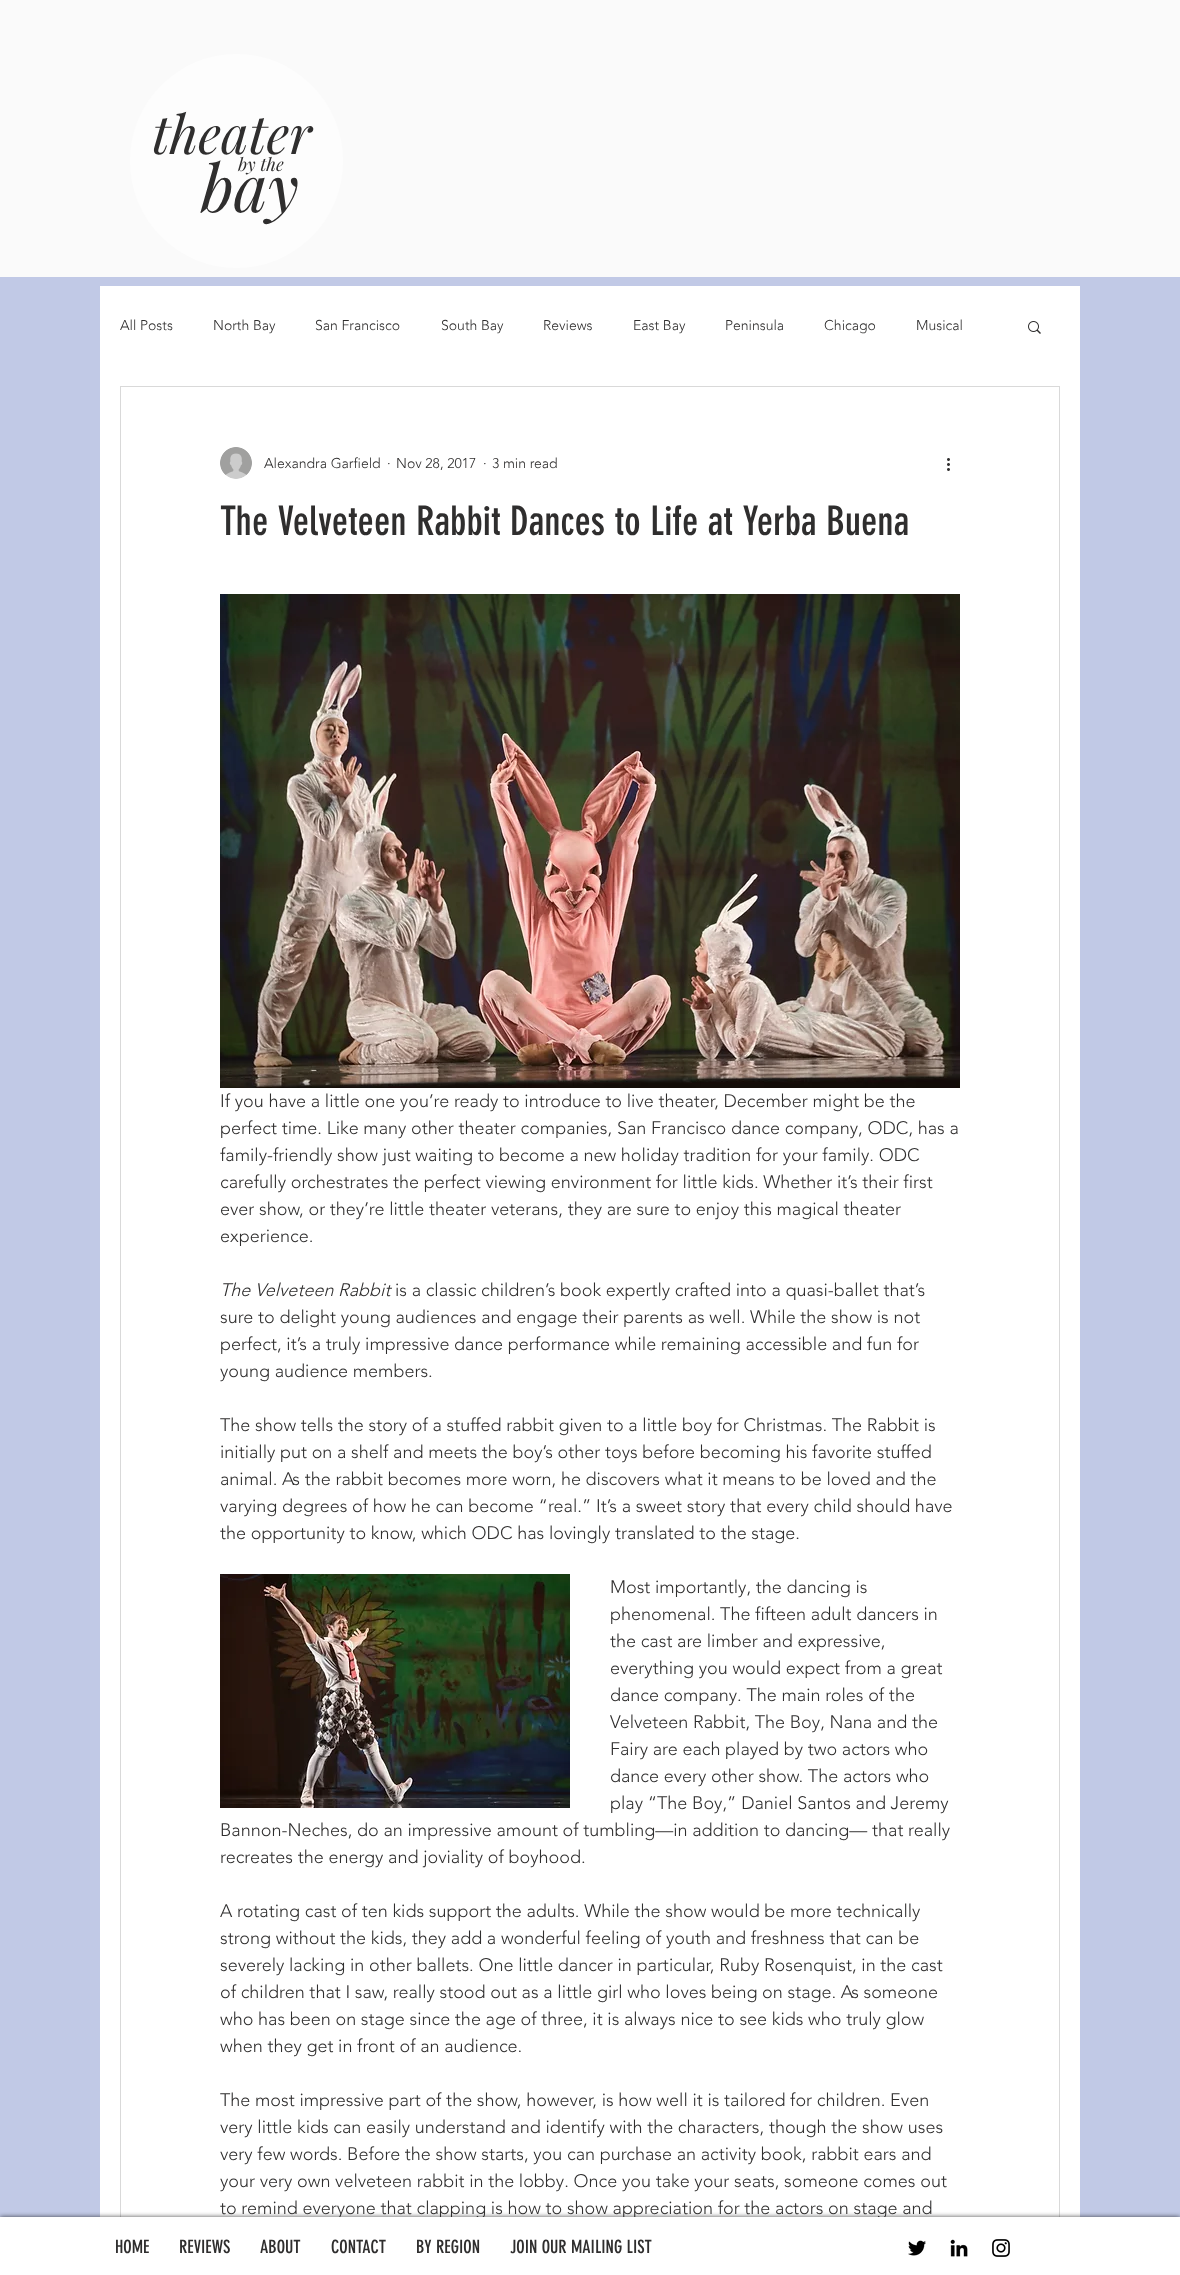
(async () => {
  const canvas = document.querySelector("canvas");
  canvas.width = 1180;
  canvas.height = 2275;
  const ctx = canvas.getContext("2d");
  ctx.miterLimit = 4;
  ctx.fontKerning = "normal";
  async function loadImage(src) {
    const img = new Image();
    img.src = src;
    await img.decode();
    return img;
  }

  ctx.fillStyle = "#c1c9e6";
  ctx.fillRect(0, 0, 1180, 2275);
  ctx.fillStyle = "#fafafa";
  ctx.fillRect(0, 0, 1180, 277);
  ctx.fillStyle = "#fdfdfd";
  ctx.beginPath();
  ctx.roundRect(130, 54, 213, 214, 106.5);
  ctx.fill();
  ctx.fillStyle = "#ffffff";
  ctx.fillRect(100, 286, 980, 1931);
  ctx.drawImage(await loadImage("img/1.png"), 1028, 321, 13, 13);
  ctx.strokeStyle = "#d9d9d9";
  ctx.strokeRect(120.5, 386.5, 939, 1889);
  ctx.drawImage(await loadImage("img/2.png"), 220, 447, 32, 32);
  ctx.drawImage(await loadImage("img/3.png"), 947, 458, 3, 13);
  ctx.drawImage(await loadImage("img/4.png"), 220, 594, 740, 494);
  ctx.drawImage(await loadImage("img/5.png"), 220, 1574, 350, 234);
  ctx.fillStyle = "rgba(0, 0, 0, 0.7)";
  ctx.filter = "blur(2.5px)";
  ctx.beginPath();
  ctx.rect(0, 2217, 1180, 58);
  ctx.fill();
  ctx.filter = "none";
  ctx.font = "italic 53px Playfair Display";
  ctx.fillStyle = "#2f2e2e";
  ctx.fillText("theater", 152, 154);
  ctx.font = "italic 65px Playfair Display";
  ctx.fillText("bay", 201, 212);
  ctx.font = "italic 18px Playfair Display";
  ctx.fillText("by the", 238, 171);
  ctx.font = "300 14px 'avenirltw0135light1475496'";
  for (const [text, x, y] of [
    ["All Posts", 120, 330],
    ["North Bay", 213, 330],
    ["San Francisco", 315, 330],
    ["South Bay", 441, 330],
    ["Reviews", 543, 330],
    ["East Bay", 633, 330],
    ["Peninsula", 725, 330],
    ["Chicago", 824, 330],
    ["Musical", 916, 330],
    ["Alexandra Garfield", 264, 468],
    ["·", 387, 468],
    ["Nov 28, 2017", 396, 468],
    ["·", 483, 468],
    ["3 min read", 492, 468],
  ]) {
    ctx.fillText(text, x, y);
  }
  ctx.font = "40px 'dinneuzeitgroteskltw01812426'";
  ctx.fillText("The Velveteen Rabbit Dances to Life at Yerba Buena", 220, 535);
  ctx.font = "300 18px 'avenirltw0135light1475496'";
  for (const [text, x, y] of [
    ["If you have a little one you’re ready to introduce to live theater, December might be the", 220, 1107],
    ["perfect time. Like many other theater companies, San Francisco dance company, ODC, has a", 220, 1134],
    ["family-friendly show just waiting to become a new holiday tradition for your family. ODC", 220, 1161],
    ["carefully orchestrates the perfect viewing environment for little kids. Whether it’s their first", 220, 1188],
    ["ever show, or they’re little theater veterans, they are sure to enjoy this magical theater", 220, 1215],
    ["experience.", 220, 1242],
  ]) {
    ctx.fillText(text, x, y);
  }
  ctx.font = "italic 300 18px 'avenirltw0135light1475496'";
  ctx.fillText("The Velveteen Rabbit", 220, 1296);
  ctx.font = "300 18px 'avenirltw0135light1475496'";
  for (const [text, x, y] of [
    ["is a classic children’s book expertly crafted into a quasi-ballet that’s", 395, 1296],
    ["sure to delight young audiences and engage their parents as well. While the show is not", 220, 1323],
    ["perfect, it’s a truly impressive dance performance while remaining accessible and fun for", 220, 1350],
    ["young audience members.", 220, 1377],
    ["The show tells the story of a stuffed rabbit given to a little boy for Christmas. The Rabbit is", 220, 1431],
    ["initially put on a shelf and meets the boy’s other toys before becoming his favorite stuffed", 220, 1458],
    ["animal. As the rabbit becomes more worn, he discovers what it means to be loved and the", 220, 1485],
    ["varying degrees of how he can become “real.” It’s a sweet story that every child should have", 220, 1512],
    ["the opportunity to know, which ODC has lovingly translated to the stage.", 220, 1539],
    ["Most importantly, the dancing is", 610, 1593],
    ["phenomenal. The fifteen adult dancers in", 610, 1620],
    ["the cast are limber and expressive,", 610, 1647],
    ["everything you would expect from a great", 610, 1674],
    ["dance company. The main roles of the", 610, 1701],
    ["Velveteen Rabbit, The Boy, Nana and the", 610, 1728],
    ["Fairy are each played by two actors who", 610, 1755],
    ["dance every other show. The actors who", 610, 1782],
    ["play “The Boy,” Daniel Santos and Jeremy", 610, 1809],
    ["Bannon-Neches, do an impressive amount of tumbling—in addition to dancing— that really", 220, 1836],
    ["recreates the energy and joviality of boyhood.", 220, 1863],
    ["A rotating cast of ten kids support the adults. While the show would be more technically", 220, 1917],
    ["strong without the kids, they add a wonderful feeling of youth and freshness that can be", 220, 1944],
    ["severely lacking in other ballets. One little dancer in particular, Ruby Rosenquist, in the cast", 220, 1971],
    ["of children that I saw, really stood out as a little girl who loves being on stage. As someone", 220, 1998],
    ["who has been on stage since the age of three, it is always nice to see kids who truly glow", 220, 2025],
    ["when they get in front of an audience.", 220, 2052],
    ["The most impressive part of the show, however, is how well it is tailored for children. Even", 220, 2106],
    ["very little kids can easily understand and identify with the characters, though the show uses", 220, 2133],
    ["very few words. Before the show starts, you can purchase an activity book, rabbit ears and", 220, 2160],
    ["your very own velveteen rabbit in the lobby. Once you take your seats, someone comes out", 220, 2187],
    ["to remind everyone that clapping is how to show appreciation for the actors on stage and", 220, 2214],
  ]) {
    ctx.fillText(text, x, y);
  }
  ctx.fillStyle = "#ffffff";
  ctx.fillRect(0, 2217, 1180, 58);
  ctx.font = "18px 'dinneuzeitgroteskltw01812426'";
  ctx.fillStyle = "#2f2e2e";
  for (const [text, x, y] of [
    ["HOME", 115, 2253],
    ["REVIEWS", 179, 2253],
    ["ABOUT", 260, 2253],
    ["CONTACT", 331, 2253],
    ["BY REGION", 416, 2253],
    ["JOIN OUR MAILING LIST", 510, 2253],
  ]) {
    ctx.fillText(text, x, y);
  }
  ctx.drawImage(await loadImage("img/6.png"), 908, 2240, 18, 16);
  ctx.drawImage(await loadImage("img/7.png"), 950, 2239, 18, 18);
  ctx.drawImage(await loadImage("img/8.png"), 992, 2239, 18, 18);
})();
